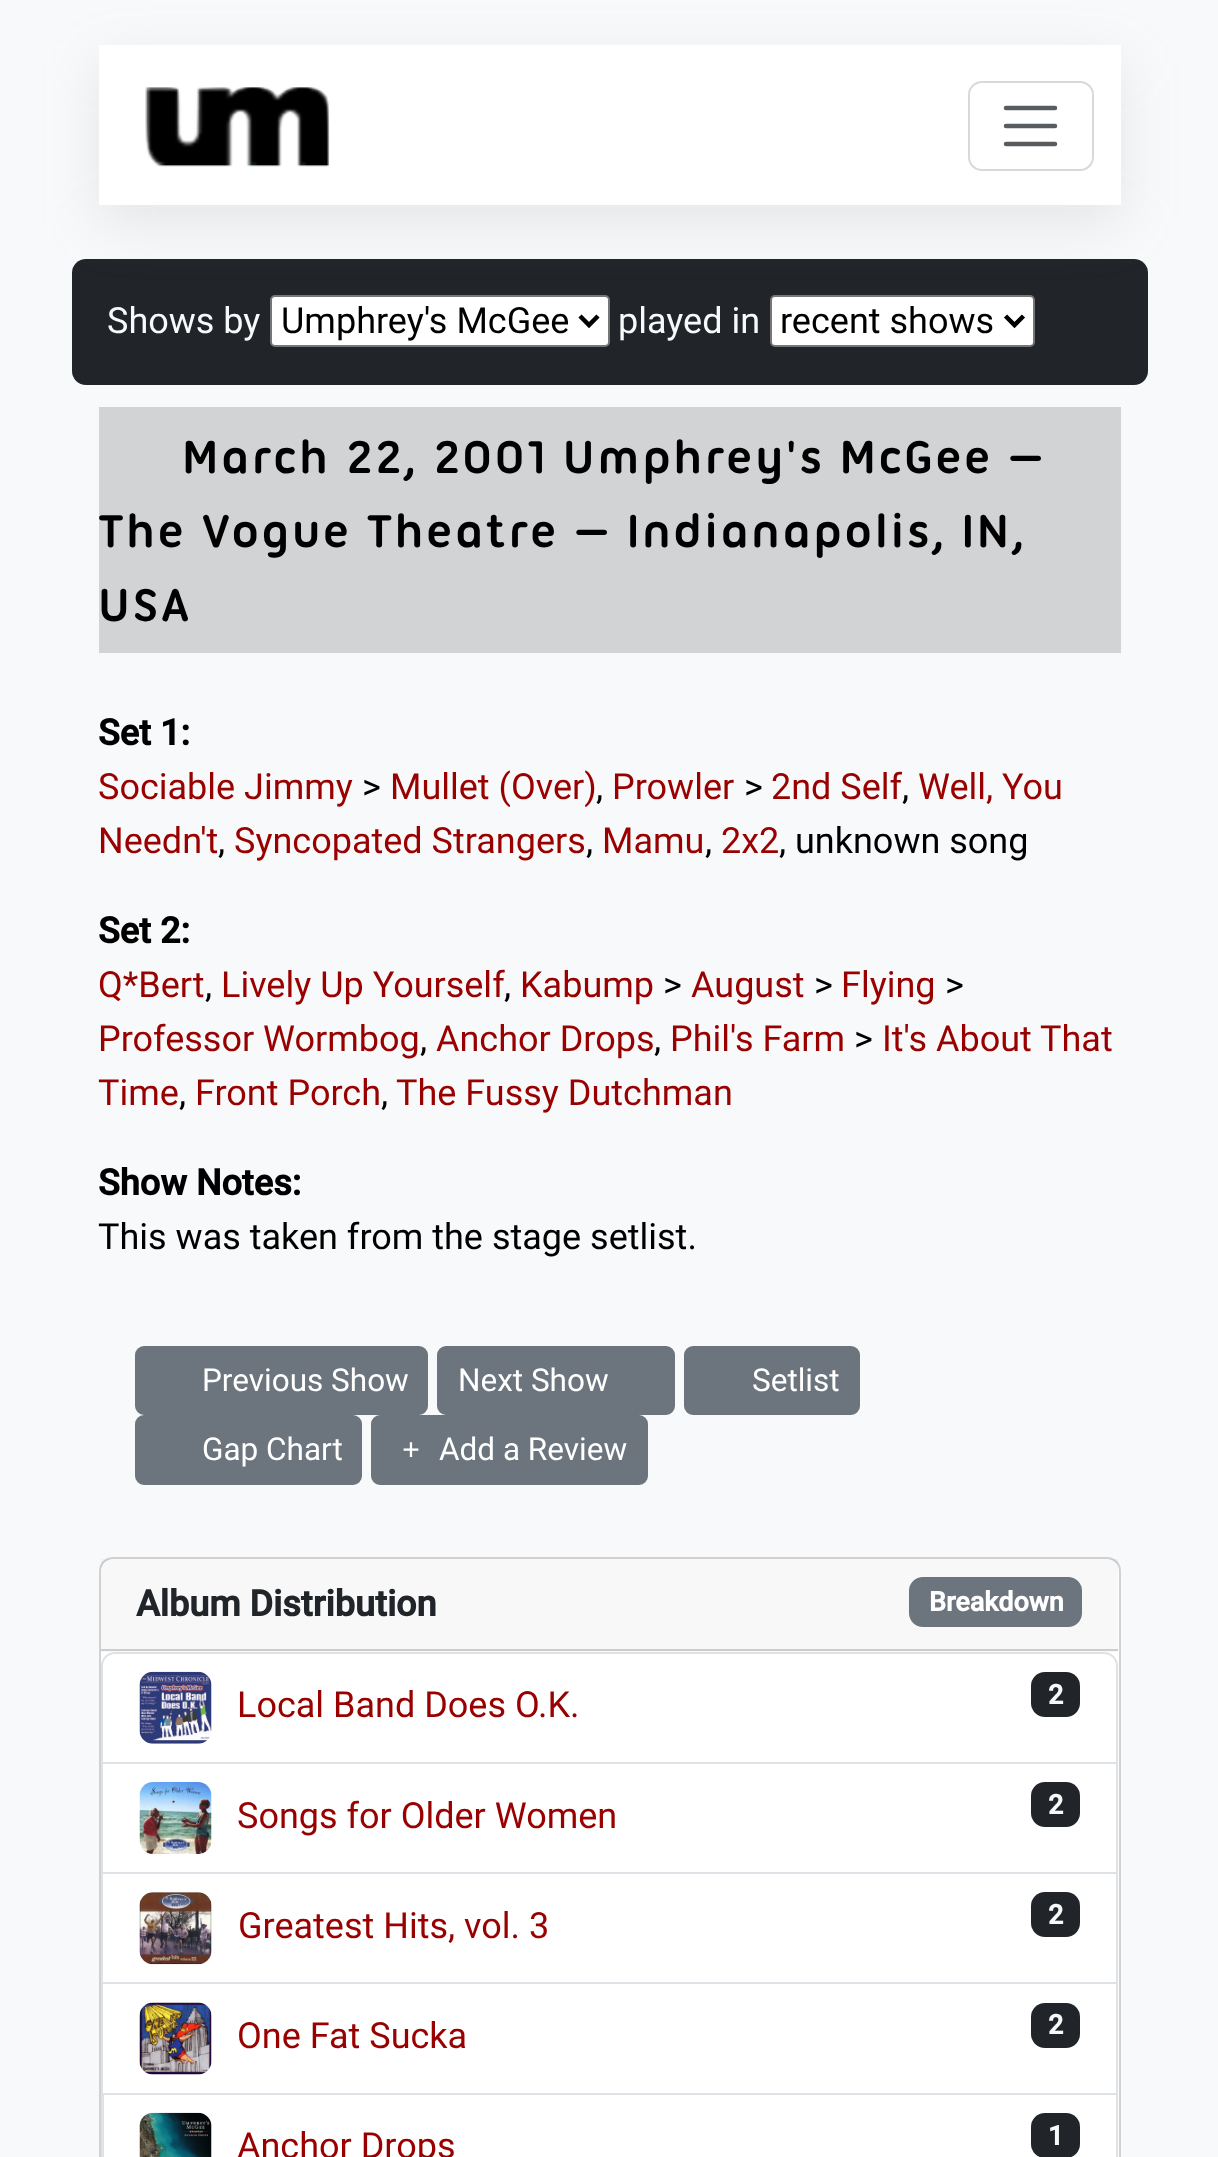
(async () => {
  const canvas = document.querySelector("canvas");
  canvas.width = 1218;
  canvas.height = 2157;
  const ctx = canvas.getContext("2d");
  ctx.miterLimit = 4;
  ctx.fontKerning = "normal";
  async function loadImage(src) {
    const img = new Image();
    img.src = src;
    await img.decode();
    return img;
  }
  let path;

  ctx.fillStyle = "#f8f9fa";
  ctx.fillRect(0, 0, 1218, 2157);
  ctx.fillStyle = "#212529";
  ctx.beginPath();
  ctx.roundRect(72, 259, 1076, 126, 14);
  ctx.fill();
  ctx.fillStyle = "#ffffff";
  ctx.beginPath();
  ctx.roundRect(271, 296, 338, 50, 4);
  ctx.fill();
  ctx.strokeStyle = "#767676";
  ctx.lineWidth = 2;
  ctx.stroke();
  ctx.beginPath();
  ctx.roundRect(771, 296, 263, 50, 4);
  ctx.fill();
  ctx.stroke();
  ctx.fillStyle = "rgba(149, 157, 165, 0.2)";
  ctx.filter = "blur(27px)";
  ctx.beginPath();
  ctx.rect(99, 63, 1022, 160);
  ctx.fill();
  ctx.filter = "none";
  ctx.fillStyle = "#ffffff";
  ctx.fillRect(99, 45, 1022, 160);
  ctx.drawImage(await loadImage("img/1.png"), 145, 87, 185, 80);
  ctx.beginPath();
  ctx.roundRect(969, 82, 124, 88, 13);
  ctx.strokeStyle = "#d9d9d9";
  ctx.stroke();
  path = new Path2D("M1006 108H1055M1006 126H1055M1006 144H1055");
  ctx.strokeStyle = "#595c5f";
  ctx.lineWidth = 4.5;
  ctx.lineCap = "round";
  ctx.stroke(path);
  path = new Path2D("M580 316L589 325L598 316");
  ctx.strokeStyle = "#000000";
  ctx.lineCap = "butt";
  ctx.stroke(path);
  path = new Path2D("M1005.5 316L1014.5 325L1023.5 316");
  ctx.stroke(path);
  ctx.fillStyle = "#d1d3d4";
  ctx.fillRect(99, 407, 1022, 246);
  ctx.fillStyle = "#6c757d";
  ctx.beginPath();
  ctx.roundRect(136, 1347, 291, 67, 8);
  ctx.fill();
  ctx.strokeStyle = "#6c757d";
  ctx.lineWidth = 2;
  ctx.stroke();
  ctx.beginPath();
  ctx.roundRect(438, 1347, 236, 67, 8);
  ctx.fill();
  ctx.stroke();
  ctx.beginPath();
  ctx.roundRect(685, 1347, 174, 67, 8);
  ctx.fill();
  ctx.stroke();
  ctx.beginPath();
  ctx.roundRect(136, 1416, 225, 68, 8);
  ctx.fill();
  ctx.stroke();
  ctx.beginPath();
  ctx.roundRect(372, 1416, 275, 68, 8);
  ctx.fill();
  ctx.stroke();
  ctx.fillStyle = "#ffffff";
  ctx.beginPath();
  ctx.roundRect(99, 1557, 1022, 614, 14);
  ctx.fill();
  ctx.beginPath();
  ctx.roundRect(100, 1558, 1020, 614, 13);
  ctx.strokeStyle = "rgba(0, 0, 0, 0.18)";
  ctx.stroke();
  ctx.fillStyle = "rgba(33, 37, 41, 0.03)";
  ctx.fillRect(101, 1559, 1017, 93);
  ctx.fillStyle = "#cdcdcd";
  ctx.fillRect(101, 1649, 1017, 2);
  ctx.fillStyle = "#6c757d";
  ctx.beginPath();
  ctx.roundRect(910, 1578, 171, 48, 13);
  ctx.fill();
  ctx.strokeStyle = "#6c757d";
  ctx.stroke();
  ctx.beginPath();
  ctx.roundRect(102, 1653, 1015, 110, [13, 13, 0, 0]);
  ctx.strokeStyle = "#dee2e6";
  ctx.stroke();
  ctx.drawImage(await loadImage("img/2.png"), 139, 1671, 73, 73);
  ctx.fillStyle = "#212529";
  ctx.beginPath();
  ctx.roundRect(1031, 1672, 49, 45, 14);
  ctx.fill();
  for (const [x, y, w, h, color] of [
    [1116, 1764, 2, 331, "#dee2e6"],
    [101, 1872, 1017, 2, "#dee2e6"],
    [101, 1764, 2, 110, "#dee2e6"],
  ]) {
    ctx.fillStyle = color;
    ctx.fillRect(x, y, w, h);
  }
  ctx.drawImage(await loadImage("img/3.png"), 139, 1782, 73, 72);
  ctx.fillStyle = "#212529";
  ctx.beginPath();
  ctx.roundRect(1031, 1782, 49, 45, 14);
  ctx.fill();
  ctx.fillStyle = "#dee2e6";
  ctx.fillRect(101, 1982, 1017, 2);
  ctx.fillRect(101, 1874, 2, 111);
  ctx.drawImage(await loadImage("img/4.png"), 139, 1892, 73, 73);
  ctx.fillStyle = "#212529";
  ctx.beginPath();
  ctx.roundRect(1031, 1892, 49, 45, 14);
  ctx.fill();
  ctx.fillStyle = "#dee2e6";
  ctx.fillRect(101, 2093, 1017, 2);
  ctx.fillRect(101, 1985, 2, 110);
  ctx.drawImage(await loadImage("img/5.png"), 139, 2002, 73, 73);
  ctx.fillStyle = "#212529";
  ctx.beginPath();
  ctx.roundRect(1031, 2003, 49, 45, 14);
  ctx.fill();
  ctx.fillStyle = "#dee2e6";
  path = new Path2D("M101 2095H1118V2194C1118 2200 1113 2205 1107 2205H112C106 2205 101 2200 101 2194ZM104 2095H1116V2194C1116 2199 1112 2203 1107 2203H112C108 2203 104 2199 104 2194Z");
  ctx.fill(path, "evenodd");
  ctx.drawImage(await loadImage("img/6.png"), 139, 2112, 73, 45);
  ctx.fillStyle = "#212529";
  ctx.beginPath();
  ctx.roundRect(1031, 2113, 49, 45, 14);
  ctx.fill();
  ctx.font = "36px Roboto";
  ctx.fillStyle = "#f8f9fa";
  ctx.fillText("Shows by", 107, 333);
  ctx.fillStyle = "#000000";
  ctx.fillText("Umphrey's McGee", 281, 333);
  ctx.fillStyle = "#f8f9fa";
  ctx.fillText("played in", 618, 333);
  ctx.fillStyle = "#000000";
  ctx.fillText("recent shows", 780, 333);
  ctx.letterSpacing = "2.25px";
  ctx.font = "bold 49.5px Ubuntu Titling";
  for (const [text, x, y] of [
    ["March 22, 2001 Umphrey's McGee —", 182, 473],
    ["The Vogue Theatre — Indianapolis, IN", 98, 547],
    [",", 1012, 547],
    ["USA", 98, 621],
  ]) {
    ctx.fillText(text, x, y);
  }
  ctx.letterSpacing = "0px";
  ctx.font = "bold 36px Roboto";
  ctx.fillText("Set 1:", 98, 745);
  ctx.font = "36px Roboto";
  ctx.fillStyle = "#990000";
  ctx.fillText("Sociable Jimmy", 98, 799);
  ctx.fillStyle = "#000000";
  ctx.fillText(">", 362, 799);
  ctx.fillStyle = "#990000";
  ctx.fillText("Mullet (Over)", 390, 799);
  ctx.fillText("Prowler", 612, 799);
  ctx.fillStyle = "#000000";
  ctx.fillText(">", 744, 799);
  ctx.fillStyle = "#990000";
  ctx.fillText("2nd Self", 771, 799);
  ctx.fillText("Well, You", 918, 799);
  ctx.fillStyle = "#000000";
  ctx.fillText(",", 596, 799);
  ctx.fillText(",", 902, 799);
  ctx.fillStyle = "#990000";
  for (const [text, x, y] of [
    ["Needn't", 98, 853],
    ["Syncopated Strangers", 234, 853],
    ["Mamu", 602, 853],
    ["2x2", 721, 853],
  ]) {
    ctx.fillText(text, x, y);
  }
  ctx.fillStyle = "#000000";
  for (const [text, x, y] of [
    [", unknown song", 779, 853],
    [",", 218, 853],
    [",", 586, 853],
    [",", 705, 853],
  ]) {
    ctx.fillText(text, x, y);
  }
  ctx.font = "bold 36px Roboto";
  ctx.fillText("Set 2:", 98, 943);
  ctx.font = "36px Roboto";
  ctx.fillStyle = "#990000";
  for (const [text, x, y] of [
    ["Q*Bert", 98, 997],
    ["Lively Up Yourself", 221, 997],
    ["Kabump", 520, 997],
  ]) {
    ctx.fillText(text, x, y);
  }
  ctx.fillStyle = "#000000";
  ctx.fillText(">", 663, 997);
  ctx.fillStyle = "#990000";
  ctx.fillText("August", 691, 997);
  ctx.fillStyle = "#000000";
  ctx.fillText(">", 814, 997);
  ctx.fillStyle = "#990000";
  ctx.fillText("Flying", 841, 997);
  ctx.fillStyle = "#000000";
  for (const [text, x, y] of [
    [">", 945, 997],
    [",", 205, 997],
    [",", 504, 997],
  ]) {
    ctx.fillText(text, x, y);
  }
  ctx.fillStyle = "#990000";
  for (const [text, x, y] of [
    ["Professor Wormbog", 98, 1051],
    ["Anchor Drops", 436, 1051],
    ["Phil's Farm", 670, 1051],
  ]) {
    ctx.fillText(text, x, y);
  }
  ctx.fillStyle = "#000000";
  ctx.fillText(">", 854, 1051);
  ctx.fillStyle = "#990000";
  ctx.fillText("It's About That", 882, 1051);
  ctx.fillStyle = "#000000";
  ctx.fillText(",", 420, 1051);
  ctx.fillText(",", 654, 1051);
  ctx.fillStyle = "#990000";
  ctx.fillText("Time", 98, 1105);
  ctx.fillStyle = "#000000";
  ctx.fillText(",", 179, 1105);
  ctx.fillStyle = "#990000";
  ctx.fillText("Front Porch", 195, 1105);
  ctx.fillStyle = "#000000";
  ctx.fillText(",", 381, 1105);
  ctx.fillStyle = "#990000";
  ctx.fillText("The Fussy Dutchman", 396, 1105);
  ctx.font = "bold 36px Roboto";
  ctx.fillStyle = "#000000";
  ctx.fillText("Show Notes:", 98, 1195);
  ctx.font = "36px Roboto";
  ctx.fillText("This was taken from the stage setlist.", 98, 1249);
  ctx.font = "31.5px Roboto";
  ctx.fillStyle = "#ffffff";
  for (const [text, x, y] of [
    ["Previous Show", 202, 1391],
    ["Next Show", 458, 1391],
    ["Setlist", 752, 1391],
    ["Gap Chart", 202, 1460],
  ]) {
    ctx.fillText(text, x, y);
  }
  ctx.font = "bold 31.5px Liberation Serif";
  ctx.fillText("+", 402, 1460);
  ctx.font = "31.5px Roboto";
  ctx.fillText("Add a Review", 439, 1460);
  ctx.font = "bold 36px Roboto";
  ctx.fillStyle = "#212529";
  ctx.fillText("Album Distribution", 136, 1616);
  ctx.font = "bold 27px Roboto";
  ctx.fillStyle = "#ffffff";
  ctx.fillText("Breakdown", 929, 1611);
  ctx.font = "36px Roboto";
  ctx.fillStyle = "#990000";
  ctx.fillText("Local Band Does O.K.", 237, 1717);
  ctx.font = "bold 27px Roboto";
  ctx.fillStyle = "#f8f9fa";
  ctx.fillText("2", 1048, 1704);
  ctx.font = "36px Roboto";
  ctx.fillStyle = "#990000";
  ctx.fillText("Songs for Older Women", 237, 1828);
  ctx.font = "bold 27px Roboto";
  ctx.fillStyle = "#f8f9fa";
  ctx.fillText("2", 1048, 1814);
  ctx.font = "36px Roboto";
  ctx.fillStyle = "#990000";
  ctx.fillText("Greatest Hits, vol. 3", 238, 1938);
  ctx.font = "bold 27px Roboto";
  ctx.fillStyle = "#f8f9fa";
  ctx.fillText("2", 1048, 1924);
  ctx.font = "36px Roboto";
  ctx.fillStyle = "#990000";
  ctx.fillText("One Fat Sucka", 237, 2048);
  ctx.font = "bold 27px Roboto";
  ctx.fillStyle = "#f8f9fa";
  ctx.fillText("2", 1048, 2034);
  ctx.font = "36px Roboto";
  ctx.fillStyle = "#990000";
  ctx.fillText("Anchor Drops", 237, 2158);
  ctx.font = "bold 27px Roboto";
  ctx.fillStyle = "#f8f9fa";
  ctx.fillText("1", 1048, 2145);
})();
